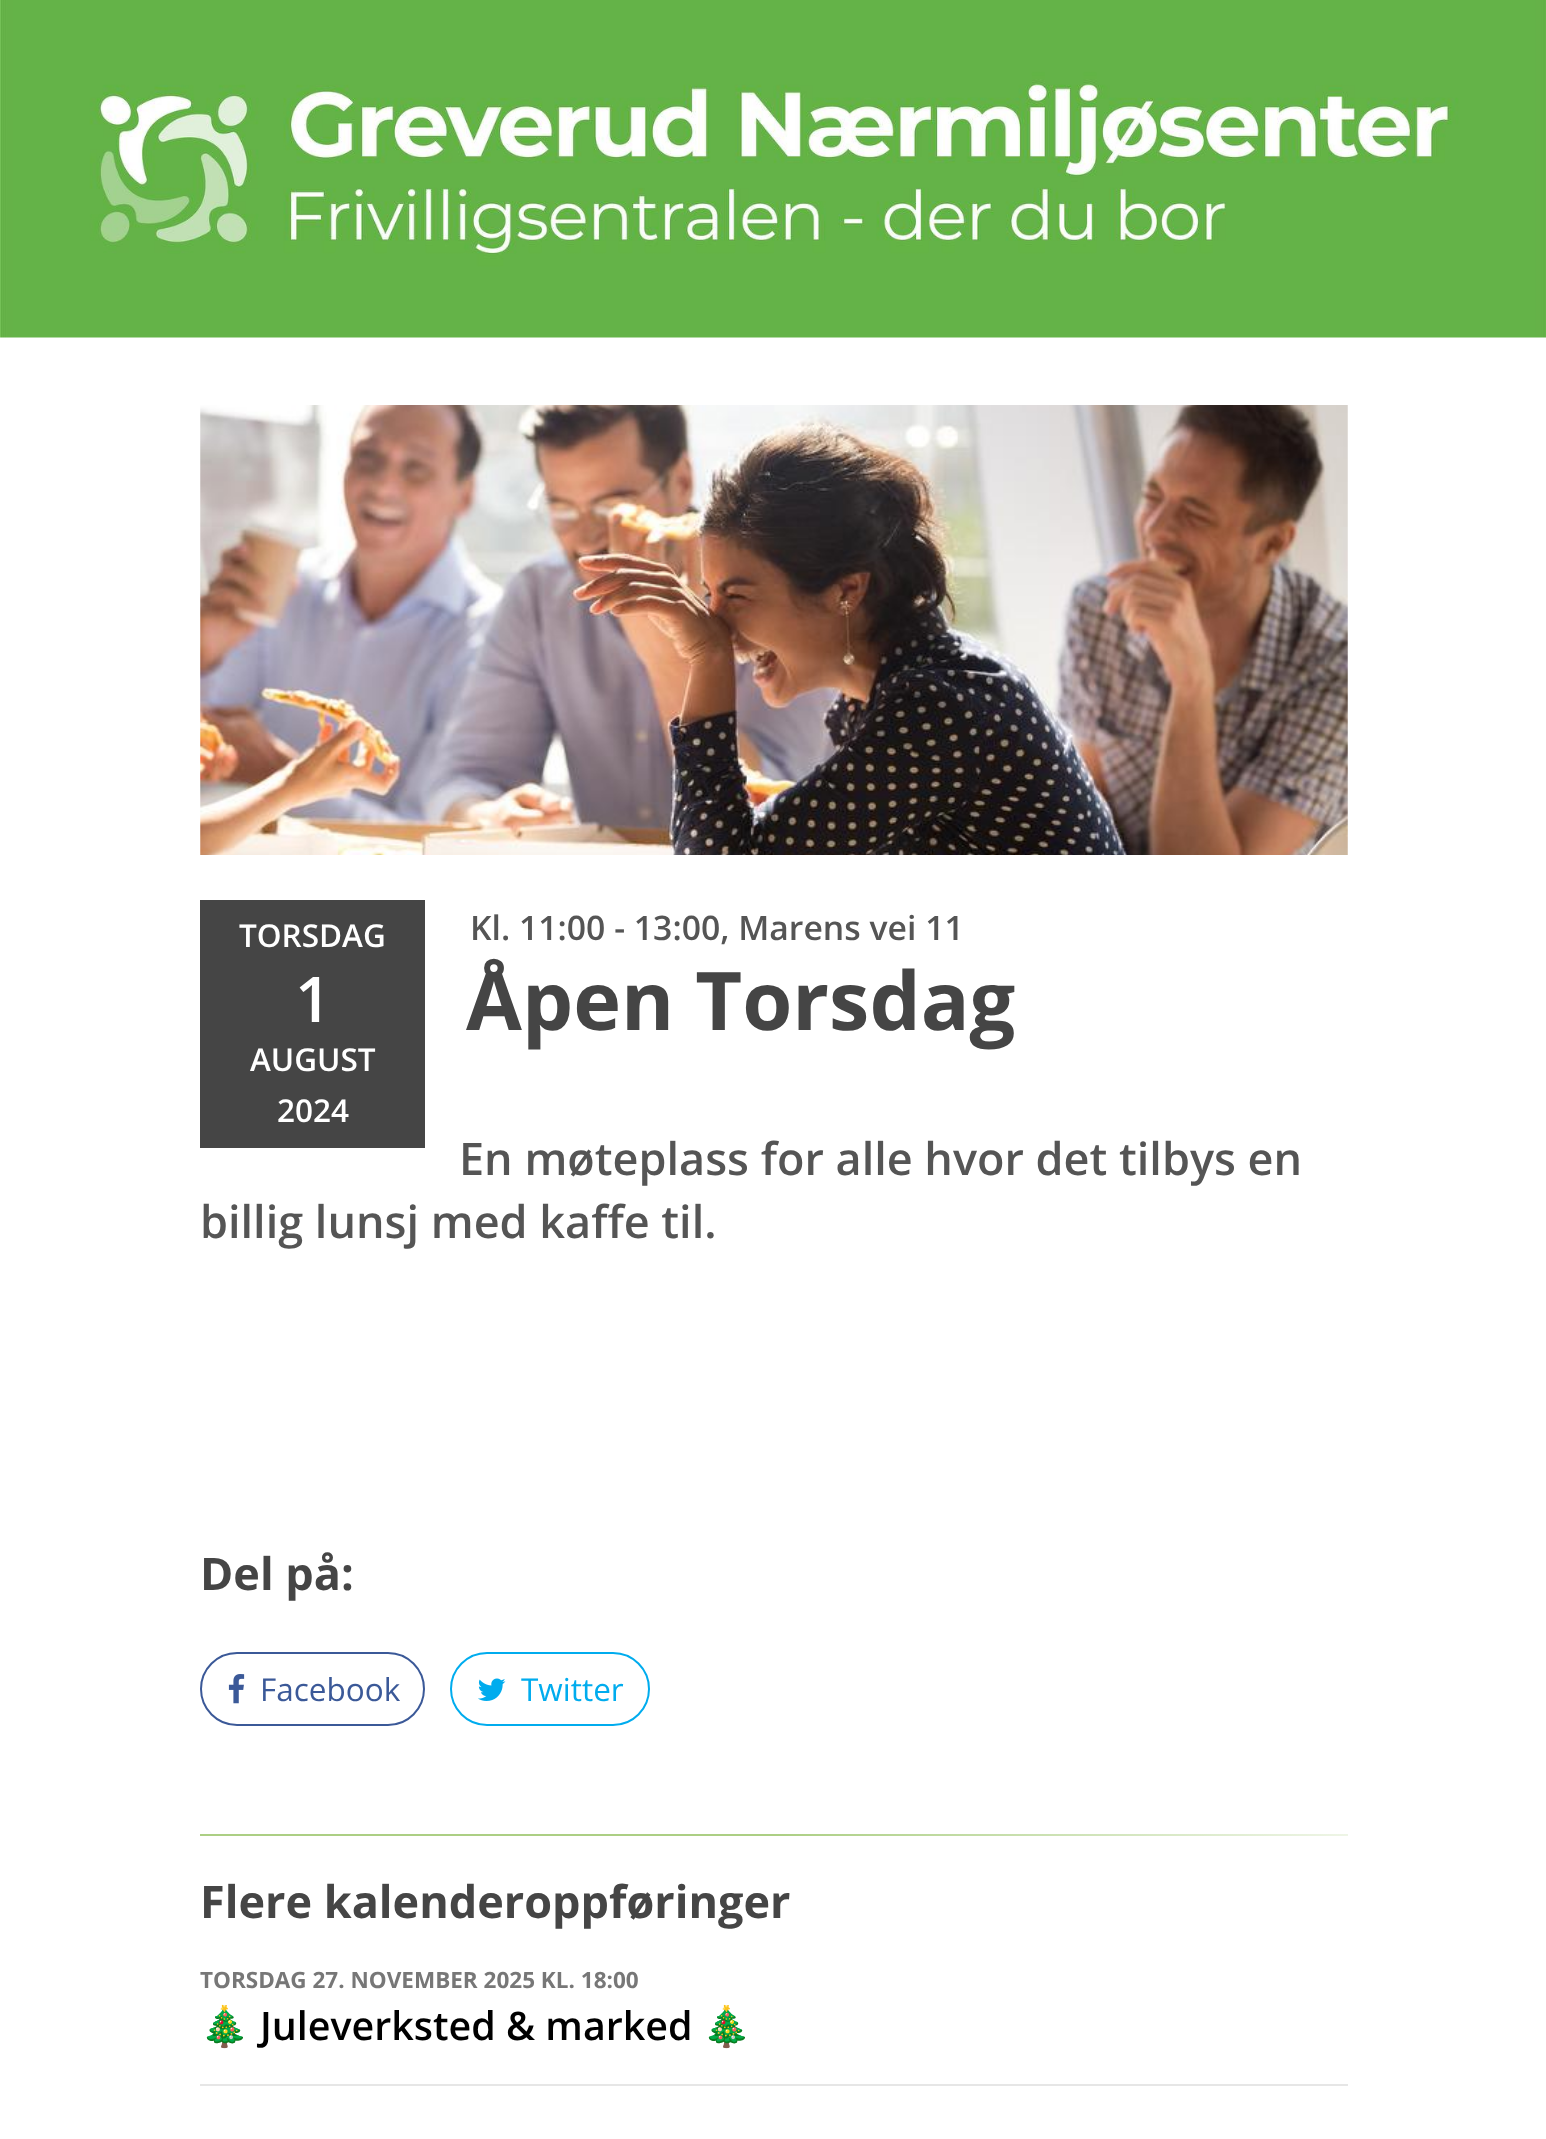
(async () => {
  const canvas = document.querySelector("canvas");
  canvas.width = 1546;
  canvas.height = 2139;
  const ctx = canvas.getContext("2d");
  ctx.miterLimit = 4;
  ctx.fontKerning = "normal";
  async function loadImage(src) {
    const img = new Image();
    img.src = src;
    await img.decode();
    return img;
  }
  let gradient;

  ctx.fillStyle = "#ffffff";
  ctx.fillRect(0, 0, 1546, 2139);
  ctx.drawImage(await loadImage("img/1.png"), 0, 0, 1546, 338);
  ctx.drawImage(await loadImage("img/2.png"), 200, 405, 1148, 450);
  ctx.fillStyle = "#454545";
  ctx.fillRect(200, 900, 225, 248);
  ctx.beginPath();
  ctx.roundRect(201, 1653, 223, 72, 36);
  ctx.strokeStyle = "#3b5998";
  ctx.lineWidth = 2;
  ctx.stroke();
  ctx.drawImage(await loadImage("img/3.png"), 228, 1674, 17, 30);
  ctx.beginPath();
  ctx.roundRect(451, 1653, 198, 72, 36);
  ctx.strokeStyle = "#00acee";
  ctx.stroke();
  ctx.drawImage(await loadImage("img/4.png"), 478, 1678, 28, 23);
  gradient = ctx.createLinearGradient(200, 1835, 1348, 1835);
  gradient.addColorStop(0, "#accf84");
  gradient.addColorStop(0.5, "#accf84");
  gradient.addColorStop(1, "#eef5e6");
  ctx.fillStyle = gradient;
  ctx.fillRect(200, 1834, 1148, 2);
  ctx.fillStyle = "#e6e6e6";
  ctx.fillRect(200, 2084, 1148, 2);
  ctx.font = "600 31.5px Open Sans";
  ctx.fillStyle = "#ffffff";
  ctx.fillText("TORSDAG", 239, 947);
  ctx.font = "600 63px Open Sans";
  ctx.fillText("1", 295, 1022);
  ctx.font = "600 31.5px Open Sans";
  ctx.fillText("AUGUST", 250, 1071);
  ctx.fillText("2024", 277, 1122);
  ctx.font = "600 33.75px Open Sans";
  ctx.fillStyle = "#555555";
  ctx.fillText("Kl. 11:00 - 13:00, Marens vei 11", 470, 940);
  ctx.font = "bold 81px Open Sans";
  ctx.fillStyle = "#454545";
  ctx.fillText("Åpen Torsdag", 466, 1030);
  ctx.font = "600 45px Open Sans";
  ctx.fillStyle = "#555555";
  ctx.fillText("En møteplass for alle hvor det tilbys en", 459, 1175);
  ctx.fillText("billig lunsj med kaffe til.", 200, 1238);
  ctx.font = "bold 45px Open Sans";
  ctx.fillStyle = "#454545";
  ctx.fillText("Del på:", 200, 1590);
  ctx.font = "31.5px Open Sans";
  ctx.fillStyle = "#3b5998";
  ctx.fillText("Facebook", 260, 1701);
  ctx.fillStyle = "#00acee";
  ctx.fillText("Twitter", 521, 1701);
  ctx.font = "bold 45px Open Sans";
  ctx.fillStyle = "#454545";
  ctx.fillText("Flere kalenderoppføringer", 200, 1918);
  ctx.font = "bold 22.5px Open Sans";
  ctx.fillStyle = "#777777";
  ctx.fillText("TORSDAG 27. NOVEMBER 2025 KL. 18:00", 200, 1988);
  ctx.font = "bold 39.4px Noto Color Emoji";
  ctx.fillStyle = "#000000";
  ctx.fillText("🎄", 200, 2040);
  ctx.font = "600 39.4px Open Sans";
  ctx.fillText("Juleverksted & marked", 260, 2040);
  ctx.font = "bold 39.4px Noto Color Emoji";
  ctx.fillText("🎄", 702, 2040);
})();
